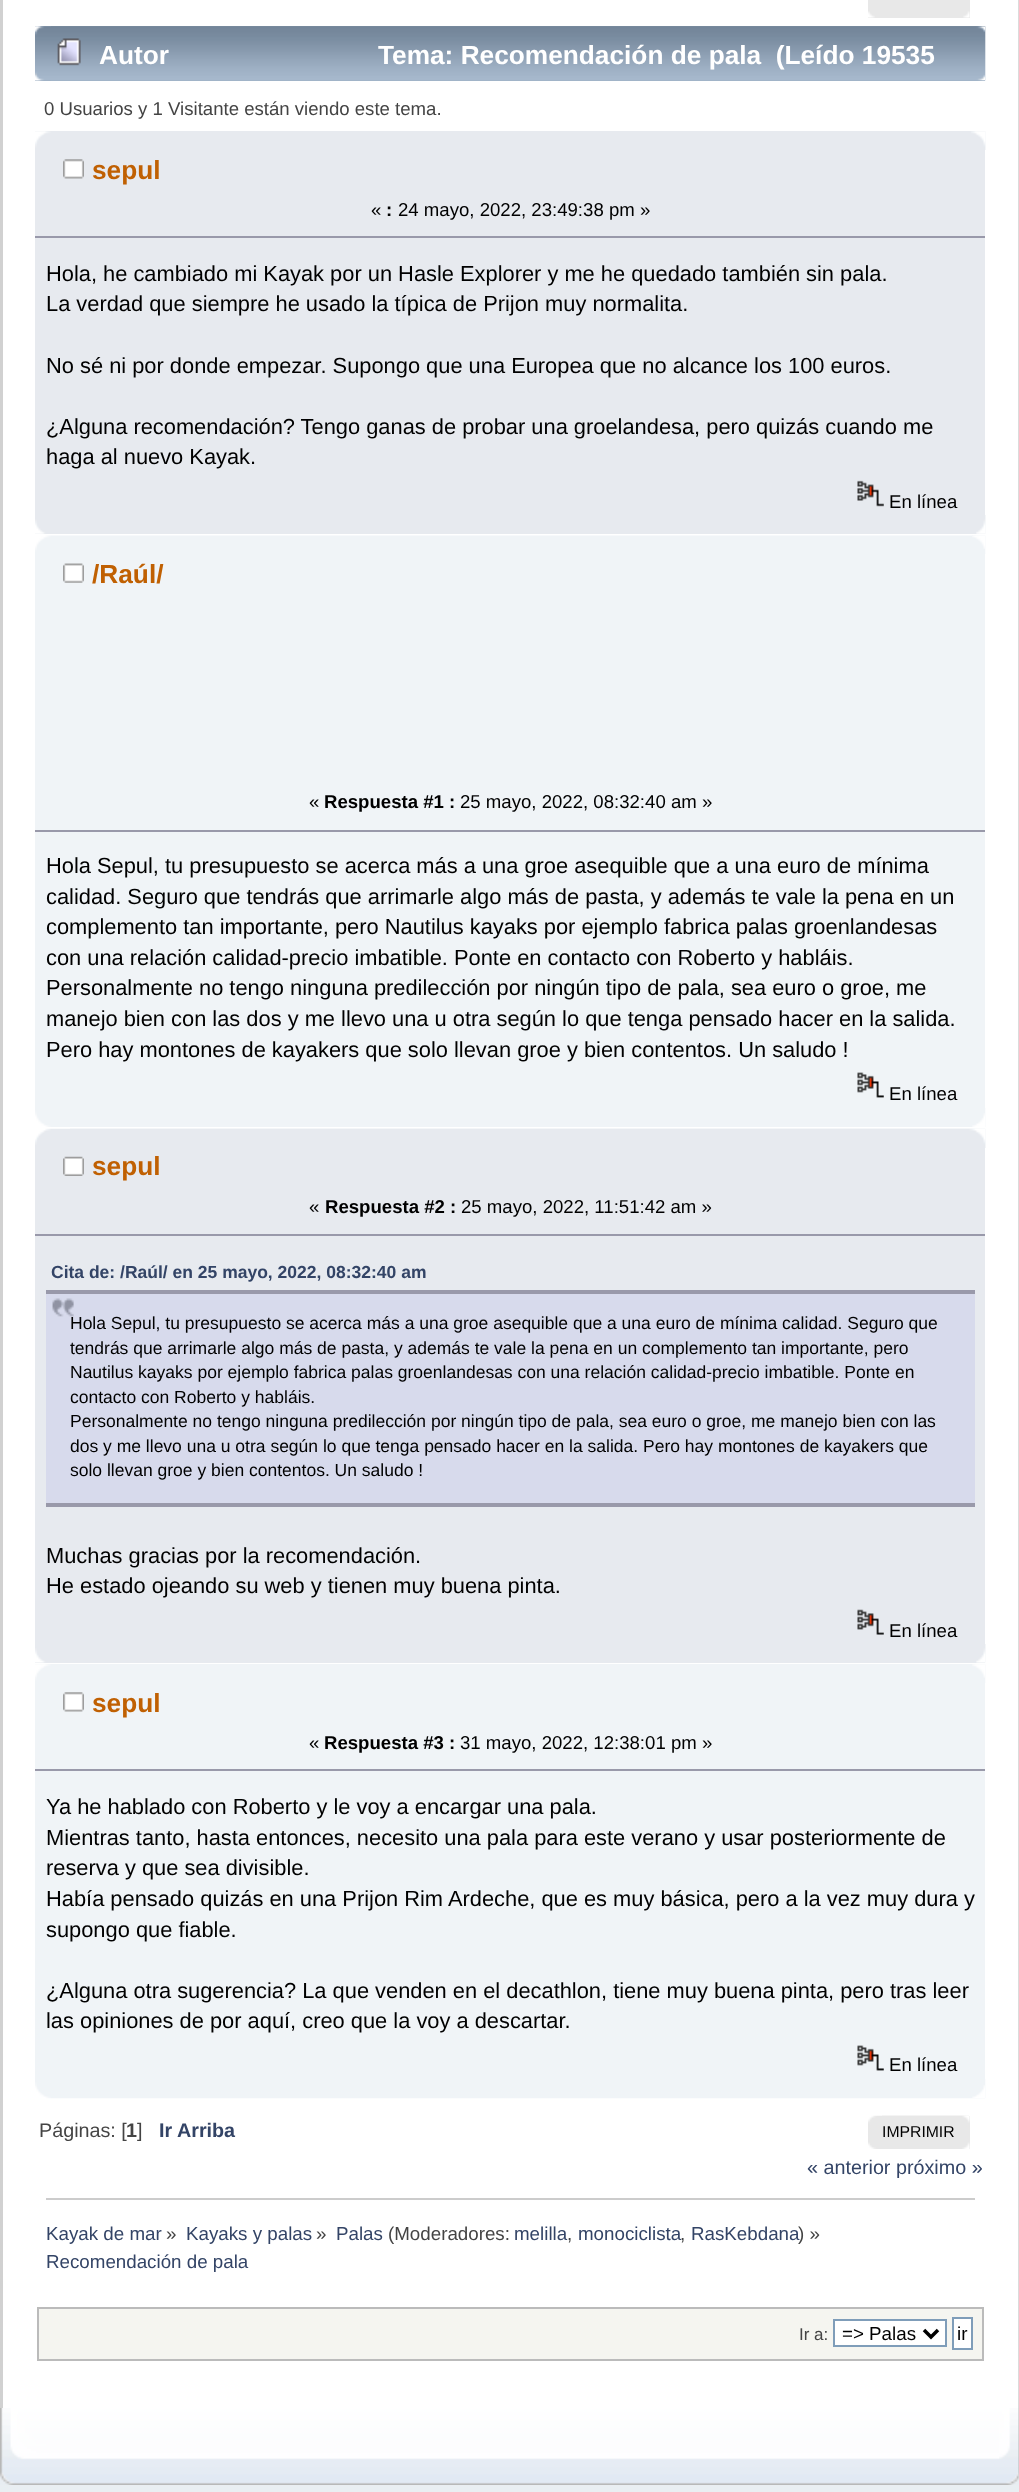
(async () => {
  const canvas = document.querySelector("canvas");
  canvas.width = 1019;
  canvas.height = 2492;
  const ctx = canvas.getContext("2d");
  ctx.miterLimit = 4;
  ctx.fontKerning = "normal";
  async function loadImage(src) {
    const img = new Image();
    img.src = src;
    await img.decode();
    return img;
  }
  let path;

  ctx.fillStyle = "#e9eef2";
  ctx.fillRect(0, 0, 1019, 2492);
  for (const [x, y, w, h, color] of [
    [3, 0, 1015, 2408, "#ffffff"],
    [0, 0, 3, 2408, "#d1d1d1"],
    [1018, 0, 1, 2408, "#dbdbdb"],
    [868, 0, 102, 18, "#e8e8e8"],
  ]) {
    ctx.fillStyle = color;
    ctx.fillRect(x, y, w, h);
  }
  ctx.drawImage(await loadImage("img/1.png"), 868, 11, 7, 7);
  ctx.drawImage(await loadImage("img/2.png"), 963, 11, 7, 7);
  ctx.fillStyle = "#99abbf";
  ctx.fillRect(35, 26, 950, 55);
  ctx.drawImage(await loadImage("img/3.png"), 35, 26, 951, 55);
  ctx.drawImage(await loadImage("img/4.png"), 51, 26, 935, 55);
  ctx.drawImage(await loadImage("img/5.png"), 57, 38, 24, 28);
  ctx.fillStyle = "#e7eaef";
  ctx.fillRect(35, 131, 950, 403);
  ctx.drawImage(await loadImage("img/6.png"), 35, 131, 951, 19);
  ctx.drawImage(await loadImage("img/7.png"), 971, 131, 15, 19);
  ctx.drawImage(await loadImage("img/8.png"), 63, 159, 21, 20);
  ctx.fillStyle = "#9999aa";
  ctx.fillRect(35, 236, 950, 2);
  ctx.drawImage(await loadImage("img/9.png"), 857, 480, 27, 27);
  ctx.drawImage(await loadImage("img/10.png"), 35, 515, 951, 19);
  ctx.drawImage(await loadImage("img/11.png"), 976, 515, 10, 19);
  ctx.fillStyle = "#f0f4f7";
  ctx.fillRect(35, 554, 950, 554);
  ctx.drawImage(await loadImage("img/12.png"), 35, 535, 951, 19);
  ctx.drawImage(await loadImage("img/13.png"), 972, 535, 13, 14);
  ctx.drawImage(await loadImage("img/14.png"), 63, 563, 21, 20);
  ctx.fillStyle = "#9999aa";
  ctx.fillRect(35, 830, 950, 2);
  ctx.drawImage(await loadImage("img/15.png"), 857, 1072, 27, 26);
  ctx.drawImage(await loadImage("img/16.png"), 35, 1108, 951, 19);
  ctx.drawImage(await loadImage("img/17.png"), 972, 1113, 13, 14);
  ctx.fillStyle = "#e7eaef";
  ctx.fillRect(35, 1148, 950, 515);
  ctx.drawImage(await loadImage("img/18.png"), 35, 1128, 951, 20);
  ctx.drawImage(await loadImage("img/19.png"), 70, 1128, 916, 20);
  ctx.drawImage(await loadImage("img/20.png"), 63, 1156, 21, 20);
  ctx.fillStyle = "#9999aa";
  ctx.fillRect(35, 1234, 950, 2);
  ctx.fillStyle = "#d7daec";
  ctx.fillRect(46, 1294, 929, 209);
  ctx.drawImage(await loadImage("img/21.png"), 52, 1298, 22, 19);
  ctx.fillStyle = "#9999aa";
  ctx.fillRect(46, 1290, 929, 4);
  ctx.fillRect(46, 1503, 929, 4);
  ctx.drawImage(await loadImage("img/22.png"), 857, 1609, 27, 26);
  ctx.drawImage(await loadImage("img/23.png"), 35, 1644, 951, 19);
  ctx.drawImage(await loadImage("img/24.png"), 976, 1644, 10, 19);
  ctx.fillStyle = "#f0f4f7";
  ctx.fillRect(35, 1664, 950, 415);
  ctx.drawImage(await loadImage("img/25.png"), 35, 1664, 951, 19);
  ctx.drawImage(await loadImage("img/26.png"), 972, 1664, 13, 14);
  ctx.drawImage(await loadImage("img/27.png"), 63, 1692, 21, 20);
  ctx.fillStyle = "#9999aa";
  ctx.fillRect(35, 1769, 950, 2);
  ctx.drawImage(await loadImage("img/15.png"), 857, 2045, 27, 26);
  ctx.drawImage(await loadImage("img/28.png"), 35, 2079, 951, 20);
  ctx.drawImage(await loadImage("img/29.png"), 972, 2085, 13, 13);
  ctx.fillStyle = "#e8e8e8";
  ctx.fillRect(969, 2116, 1, 33);
  ctx.drawImage(await loadImage("img/30.png"), 868, 2115, 101, 34);
  ctx.drawImage(await loadImage("img/31.png"), 882, 2115, 88, 34);
  ctx.fillStyle = "#cccccc";
  ctx.fillRect(46, 2198, 929, 2);
  ctx.fillStyle = "#f5f5f0";
  ctx.beginPath();
  ctx.rect(38, 2308, 945, 52);
  ctx.fill();
  ctx.strokeStyle = "#bbbbbb";
  ctx.lineWidth = 2;
  ctx.stroke();
  ctx.fillStyle = "#ffffff";
  ctx.beginPath();
  ctx.rect(834, 2320, 112, 26);
  ctx.fill();
  ctx.strokeStyle = "#7f9db9";
  ctx.stroke();
  path = new Path2D("M924 2330L931 2337L938 2330");
  ctx.strokeStyle = "#000000";
  ctx.lineWidth = 3.5;
  ctx.stroke(path);
  ctx.beginPath();
  ctx.rect(953, 2318, 19, 31);
  ctx.fill();
  ctx.strokeStyle = "#7f9db9";
  ctx.lineWidth = 2;
  ctx.stroke();
  ctx.drawImage(await loadImage("img/32.png"), 0, 2408, 999, 77);
  ctx.drawImage(await loadImage("img/33.png"), 999, 2408, 20, 77);
  ctx.font = "bold 26.25px Liberation Sans";
  ctx.fillText("Autor", 99, 64);
  ctx.fillText("Tema: Recomendación de pala  (Leído 19535", 378, 64);
  ctx.font = "18.6px Liberation Sans";
  ctx.fillStyle = "#444444";
  ctx.fillText("0 Usuarios y 1 Visitante están viendo este tema.", 44, 115);
  ctx.font = "bold 26.25px Liberation Sans";
  ctx.fillStyle = "#c06002";
  ctx.fillText("sepul", 92, 179);
  ctx.font = "18.6px Liberation Sans";
  ctx.fillStyle = "#000000";
  ctx.fillText("«", 371, 216);
  ctx.font = "bold 18.6px Liberation Sans";
  ctx.fillText(":", 386, 216);
  ctx.font = "18.6px Liberation Sans";
  ctx.fillText("24 mayo, 2022, 23:49:38 pm »", 398, 216);
  ctx.font = "21.85px Liberation Sans";
  for (const [text, x, y] of [
    ["Hola, he cambiado mi Kayak por un Hasle Explorer y me he quedado también sin pala.", 46, 281],
    ["La verdad que siempre he usado la típica de Prijon muy normalita.", 46, 311],
    ["No sé ni por donde empezar. Supongo que una Europea que no alcance los 100 euros.", 46, 373],
    ["¿Alguna recomendación? Tengo ganas de probar una groelandesa, pero quizás cuando me", 46, 434],
    ["haga al nuevo Kayak.", 46, 464],
  ]) {
    ctx.fillText(text, x, y);
  }
  ctx.font = "18.6px Liberation Sans";
  ctx.fillText("En línea", 889, 508);
  ctx.font = "bold 26.25px Liberation Sans";
  ctx.fillStyle = "#c06002";
  ctx.fillText("/Raúl/", 92, 583);
  ctx.font = "18.6px Liberation Sans";
  ctx.fillStyle = "#000000";
  ctx.fillText("«", 309, 808);
  ctx.font = "bold 18.6px Liberation Sans";
  ctx.fillText("Respuesta #1 :", 324, 808);
  ctx.font = "18.6px Liberation Sans";
  ctx.fillText("25 mayo, 2022, 08:32:40 am »", 460, 808);
  ctx.font = "21.85px Liberation Sans";
  for (const [text, x, y] of [
    ["Hola Sepul, tu presupuesto se acerca más a una groe asequible que a una euro de mínima", 46, 873],
    ["calidad. Seguro que tendrás que arrimarle algo más de pasta, y además te vale la pena en un", 46, 904],
    ["complemento tan importante, pero Nautilus kayaks por ejemplo fabrica palas groenlandesas", 46, 934],
    ["con una relación calidad-precio imbatible. Ponte en contacto con Roberto y habláis.", 46, 965],
    ["Personalmente no tengo ninguna predilección por ningún tipo de pala, sea euro o groe, me", 46, 995],
    ["manejo bien con las dos y me llevo una u otra según lo que tenga pensado hacer en la salida.", 46, 1026],
    ["Pero hay montones de kayakers que solo llevan groe y bien contentos. Un saludo !", 46, 1057],
  ]) {
    ctx.fillText(text, x, y);
  }
  ctx.font = "18.6px Liberation Sans";
  ctx.fillText("En línea", 889, 1100);
  ctx.font = "bold 26.25px Liberation Sans";
  ctx.fillStyle = "#c06002";
  ctx.fillText("sepul", 92, 1175);
  ctx.font = "18.6px Liberation Sans";
  ctx.fillStyle = "#000000";
  ctx.fillText("«", 309, 1213);
  ctx.font = "bold 18.6px Liberation Sans";
  ctx.fillText("Respuesta #2 :", 325, 1213);
  ctx.font = "18.6px Liberation Sans";
  ctx.fillText("25 mayo, 2022, 11:51:42 am »", 461, 1213);
  ctx.font = "bold 17.5px Liberation Sans";
  ctx.fillStyle = "#334466";
  ctx.fillText("Cita de: /Raúl/ en 25 mayo, 2022, 08:32:40 am", 51, 1278);
  ctx.font = "17.5px Liberation Sans";
  ctx.fillStyle = "#000000";
  for (const [text, x, y] of [
    ["Hola Sepul, tu presupuesto se acerca más a una groe asequible que a una euro de mínima calidad. Seguro que", 70, 1329],
    ["tendrás que arrimarle algo más de pasta, y además te vale la pena en un complemento tan importante, pero", 70, 1354],
    ["Nautilus kayaks por ejemplo fabrica palas groenlandesas con una relación calidad-precio imbatible. Ponte en", 70, 1378],
    ["contacto con Roberto y habláis.", 70, 1403],
    ["Personalmente no tengo ninguna predilección por ningún tipo de pala, sea euro o groe, me manejo bien con las", 70, 1427],
    ["dos y me llevo una u otra según lo que tenga pensado hacer en la salida. Pero hay montones de kayakers que", 70, 1452],
    ["solo llevan groe y bien contentos. Un saludo !", 70, 1476],
  ]) {
    ctx.fillText(text, x, y);
  }
  ctx.font = "21.85px Liberation Sans";
  ctx.fillText("Muchas gracias por la recomendación.", 46, 1563);
  ctx.fillText("He estado ojeando su web y tienen muy buena pinta.", 46, 1593);
  ctx.font = "18.6px Liberation Sans";
  ctx.fillText("En línea", 889, 1637);
  ctx.font = "bold 26.25px Liberation Sans";
  ctx.fillStyle = "#c06002";
  ctx.fillText("sepul", 92, 1712);
  ctx.font = "18.6px Liberation Sans";
  ctx.fillStyle = "#000000";
  ctx.fillText("«", 309, 1749);
  ctx.font = "bold 18.6px Liberation Sans";
  ctx.fillText("Respuesta #3 :", 324, 1749);
  ctx.font = "18.6px Liberation Sans";
  ctx.fillText("31 mayo, 2022, 12:38:01 pm »", 460, 1749);
  ctx.font = "21.85px Liberation Sans";
  for (const [text, x, y] of [
    ["Ya he hablado con Roberto y le voy a encargar una pala.", 46, 1814],
    ["Mientras tanto, hasta entonces, necesito una pala para este verano y usar posteriormente de", 46, 1845],
    ["reserva y que sea divisible.", 46, 1875],
    ["Había pensado quizás en una Prijon Rim Ardeche, que es muy básica, pero a la vez muy dura y", 46, 1906],
    ["supongo que fiable.", 46, 1937],
    ["¿Alguna otra sugerencia? La que venden en el decathlon, tiene muy buena pinta, pero tras leer", 46, 1998],
    ["las opiniones de por aquí, creo que la voy a descartar.", 46, 2028],
  ]) {
    ctx.fillText(text, x, y);
  }
  ctx.font = "18.6px Liberation Sans";
  ctx.fillText("En línea", 889, 2071);
  ctx.font = "19.75px Liberation Sans";
  ctx.fillStyle = "#444444";
  ctx.fillText("Páginas: [", 39, 2137);
  ctx.font = "bold 19.75px Liberation Sans";
  ctx.fillText("1", 126, 2137);
  ctx.font = "19.75px Liberation Sans";
  ctx.fillText("]", 137, 2137);
  ctx.font = "bold 19.75px Liberation Sans";
  ctx.fillStyle = "#334466";
  ctx.fillText("Ir Arriba", 159, 2137);
  ctx.font = "15.75px Liberation Sans";
  ctx.fillStyle = "#000000";
  ctx.fillText("IMPRIMIR", 882, 2137);
  ctx.font = "19.75px Liberation Sans";
  ctx.fillStyle = "#334466";
  ctx.fillText("« anterior próximo »", 807, 2174);
  ctx.font = "18.75px Liberation Sans";
  ctx.fillText("Kayak de mar", 46, 2240);
  ctx.fillStyle = "#444444";
  ctx.fillText("»", 166, 2240);
  ctx.fillStyle = "#334466";
  ctx.fillText("Kayaks y palas", 186, 2240);
  ctx.fillStyle = "#444444";
  ctx.fillText("»", 316, 2240);
  ctx.fillStyle = "#334466";
  ctx.fillText("Palas", 336, 2240);
  ctx.fillStyle = "#444444";
  ctx.fillText("(Moderadores:", 388, 2240);
  ctx.fillStyle = "#334466";
  ctx.fillText("melilla", 514, 2240);
  ctx.fillStyle = "#444444";
  ctx.fillText(",", 567, 2240);
  ctx.fillStyle = "#334466";
  ctx.fillText("monociclista", 578, 2240);
  ctx.fillStyle = "#444444";
  ctx.fillText(",", 680, 2240);
  ctx.fillStyle = "#334466";
  ctx.fillText("RasKebdana", 691, 2240);
  ctx.fillStyle = "#444444";
  ctx.fillText(") »", 798, 2240);
  ctx.fillStyle = "#334466";
  ctx.fillText("Recomendación de pala", 46, 2268);
  ctx.font = "17px Liberation Sans";
  ctx.fillStyle = "#444444";
  ctx.fillText("Ir a:", 799, 2340);
  ctx.font = "18.75px Liberation Sans";
  ctx.fillStyle = "#000000";
  ctx.fillText("=> Palas", 842, 2340);
  ctx.fillText("ir", 957, 2340);
})();
